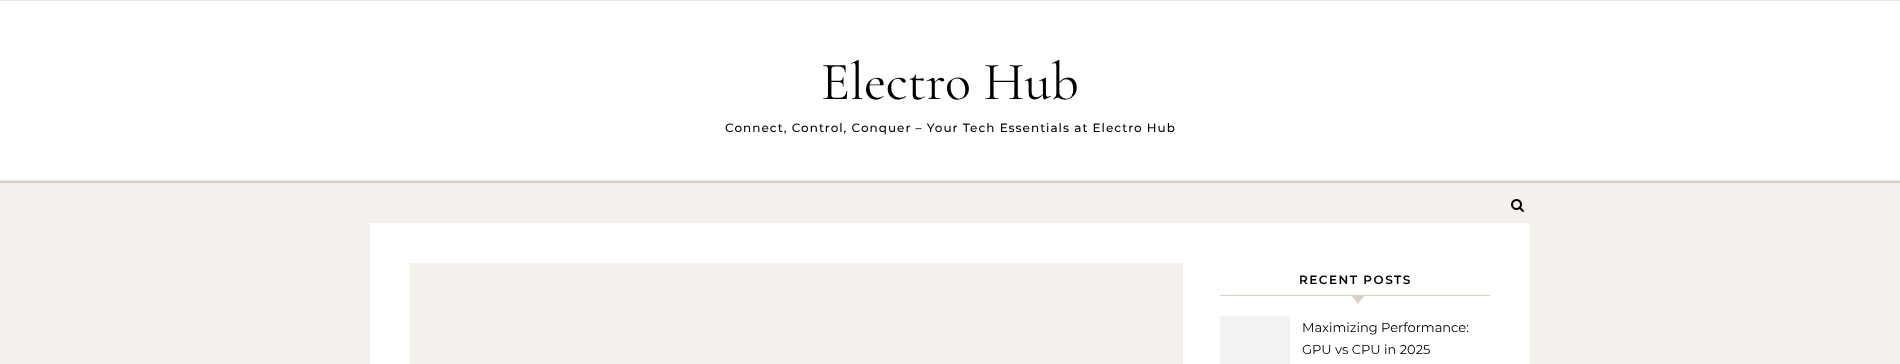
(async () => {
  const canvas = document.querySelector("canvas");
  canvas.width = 1900;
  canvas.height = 364;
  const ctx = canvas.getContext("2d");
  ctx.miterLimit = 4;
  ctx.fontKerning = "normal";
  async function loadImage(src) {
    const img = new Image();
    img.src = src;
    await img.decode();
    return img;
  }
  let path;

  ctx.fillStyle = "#f4f1ec";
  ctx.fillRect(0, 0, 1900, 364);
  for (const [x, y, w, h, color] of [
    [0, 0, 1900, 1, "#e4e4e4"],
    [0, 1, 1900, 179, "#ffffff"],
    [0, 180, 1900, 1, "#ebebeb"],
    [0, 181, 1900, 2, "#d9d1c0"],
  ]) {
    ctx.fillStyle = color;
    ctx.fillRect(x, y, w, h);
  }
  ctx.drawImage(await loadImage("img/1.png"), 1511, 199, 13, 13);
  for (const [x, y, w, h, color] of [
    [370, 223, 1160, 141, "#ffffff"],
    [410, 263, 773, 101, "#f4f1ec"],
    [1220, 295, 270, 1, "#d9d1c0"],
  ]) {
    ctx.fillStyle = color;
    ctx.fillRect(x, y, w, h);
  }
  path = new Path2D("M1352 296H1364L1358 304Z");
  ctx.fill(path);
  ctx.fillStyle = "#f2f2f2";
  ctx.fillRect(1220, 316, 70, 48);
  ctx.font = "54px Cormorant Garamond";
  ctx.fillStyle = "#000000";
  ctx.fillText("Electro Hub", 821, 99);
  ctx.letterSpacing = "1px";
  ctx.font = "100 12px Montserrat";
  ctx.fillText("Connect, Control, Conquer – Your Tech Essentials at Electro Hub", 725, 132);
  ctx.letterSpacing = "1.5px";
  ctx.font = "100 12px 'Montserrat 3'";
  ctx.fillText("RECENT POSTS", 1299, 284);
  ctx.letterSpacing = "0px";
  ctx.font = "100 13px 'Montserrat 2'";
  ctx.fillText("Maximizing Performance:", 1302, 332);
  ctx.fillText("GPU vs CPU in 2025", 1302, 354);
})();
